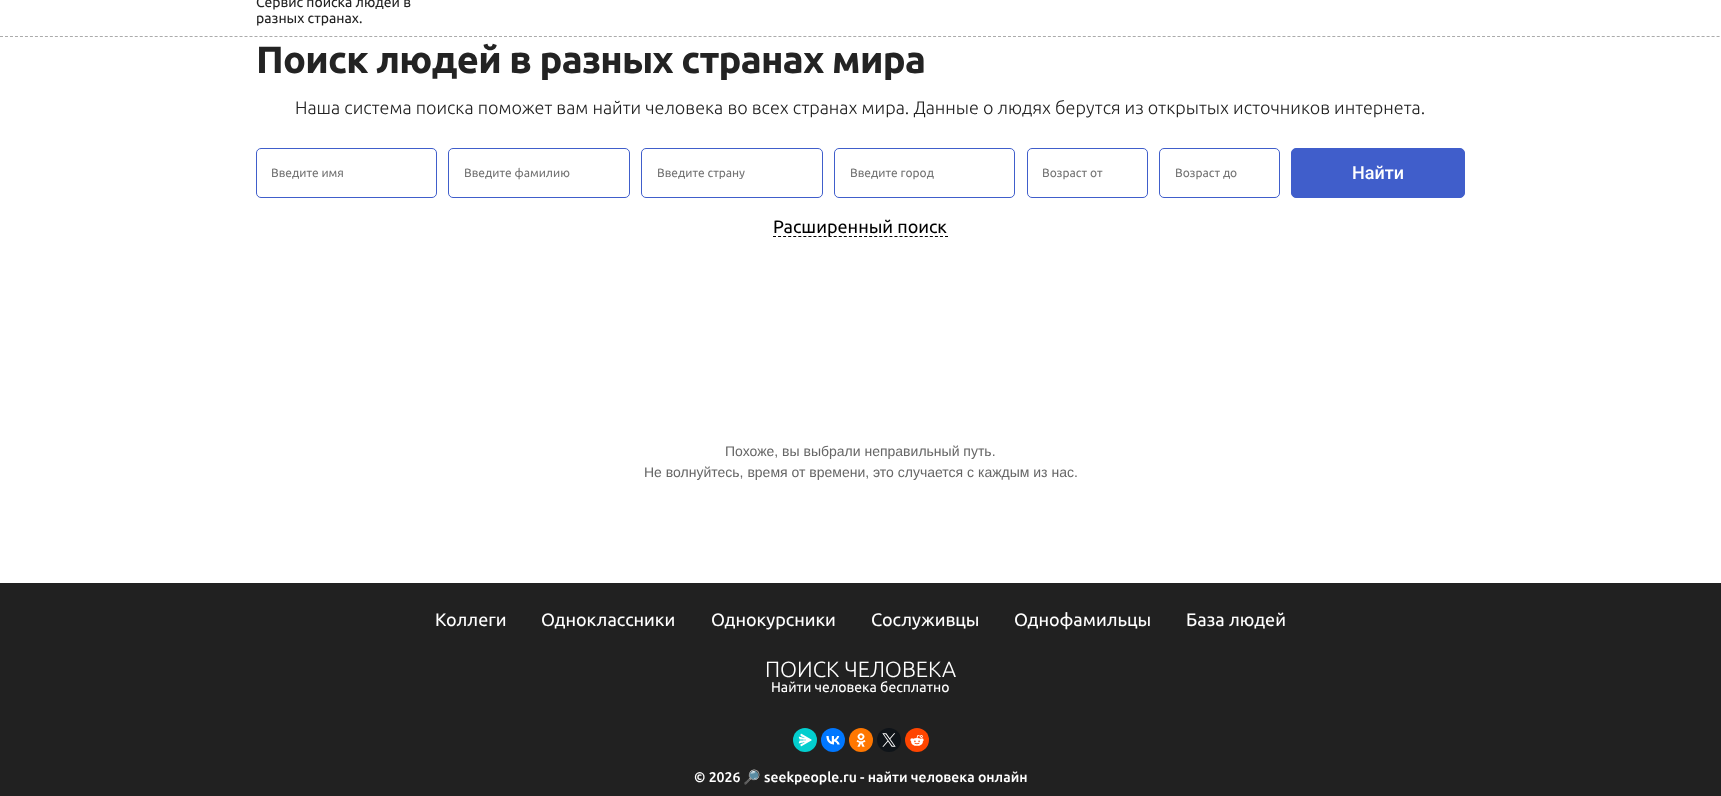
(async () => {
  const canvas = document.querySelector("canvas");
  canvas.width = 1721;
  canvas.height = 796;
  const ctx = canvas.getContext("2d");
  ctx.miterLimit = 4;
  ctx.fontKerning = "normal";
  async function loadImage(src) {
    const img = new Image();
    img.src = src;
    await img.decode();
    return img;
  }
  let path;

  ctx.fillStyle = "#ffffff";
  ctx.fillRect(0, 0, 1721, 796);
  path = new Path2D("M0 36.5H1721");
  ctx.strokeStyle = "#ababab";
  ctx.setLineDash([3, 1.99]);
  ctx.stroke(path);
  ctx.beginPath();
  ctx.roundRect(256.5, 148.5, 180, 49, 4.5);
  ctx.strokeStyle = "#405ecb";
  ctx.setLineDash([]);
  ctx.stroke();
  ctx.beginPath();
  ctx.roundRect(448.5, 148.5, 181, 49, 4.5);
  ctx.stroke();
  ctx.beginPath();
  ctx.roundRect(641.5, 148.5, 181, 49, 4.5);
  ctx.stroke();
  ctx.beginPath();
  ctx.roundRect(834.5, 148.5, 180, 49, 4.5);
  ctx.stroke();
  ctx.beginPath();
  ctx.roundRect(1027.5, 148.5, 120, 49, 4.5);
  ctx.stroke();
  ctx.beginPath();
  ctx.roundRect(1159.5, 148.5, 120, 49, 4.5);
  ctx.stroke();
  ctx.fillStyle = "#405ecb";
  ctx.beginPath();
  ctx.roundRect(1291.5, 148.5, 173, 49, 4.5);
  ctx.fill();
  ctx.stroke();
  path = new Path2D("M773 236.5H948");
  ctx.strokeStyle = "#000000";
  ctx.setLineDash([3, 2.06]);
  ctx.stroke(path);
  ctx.fillStyle = "#212121";
  ctx.fillRect(0, 583, 1721, 213);
  ctx.fillStyle = "#03cece";
  ctx.beginPath();
  ctx.arc(805, 740, 12, 0, Math.PI * 2);
  ctx.fill();
  ctx.drawImage(await loadImage("img/1.png"), 798, 733, 14, 14);
  ctx.fillStyle = "#0077ff";
  ctx.beginPath();
  ctx.arc(833, 740, 12, 0, Math.PI * 2);
  ctx.fill();
  ctx.drawImage(await loadImage("img/2.png"), 826, 736, 14, 9);
  ctx.fillStyle = "#ff7700";
  ctx.beginPath();
  ctx.arc(861, 740, 12, 0, Math.PI * 2);
  ctx.fill();
  ctx.drawImage(await loadImage("img/3.png"), 856, 733, 10, 14);
  ctx.fillStyle = "#0f1419";
  ctx.beginPath();
  ctx.arc(889, 740, 12, 0, Math.PI * 2);
  ctx.fill();
  ctx.drawImage(await loadImage("img/4.png"), 882, 733, 14, 14);
  ctx.fillStyle = "#ff4500";
  ctx.beginPath();
  ctx.arc(917, 740, 12, 0, Math.PI * 2);
  ctx.fill();
  ctx.drawImage(await loadImage("img/5.png"), 910, 735, 14, 11);
  ctx.font = "14px Ubuntu";
  ctx.fillStyle = "#232323";
  ctx.fillText("Сервис поиска людей в", 256, 7);
  ctx.fillText("разных странах.", 256, 23);
  ctx.letterSpacing = "-0.75px";
  ctx.font = "bold 38px Ubuntu";
  ctx.fillText("Поиск людей в разных странах мира", 256, 73);
  ctx.letterSpacing = "0px";
  ctx.font = "300 18px Ubuntu";
  ctx.fillText("Наша система поиска поможет вам найти человека во всех странах мира. Данные о людях берутся из открытых источников интернета.", 295, 114);
  ctx.font = "12px Ubuntu";
  ctx.fillStyle = "#757575";
  ctx.fillText("Введите имя", 271, 177);
  ctx.fillText("Введите фамилию", 464, 177);
  ctx.save();
  ctx.beginPath();
  ctx.rect(657, 166, 150, 13);
  ctx.clip();
  ctx.fillText("Введите страну", 657, 177);
  ctx.restore();
  for (const [text, x, y] of [
    ["Введите город", 850, 177],
    ["Возраст от", 1042, 177],
    ["Возраст до", 1175, 177],
  ]) {
    ctx.fillText(text, x, y);
  }
  ctx.font = "500 18px Roboto";
  ctx.fillStyle = "#ffffff";
  ctx.fillText("Найти", 1352, 179);
  ctx.font = "18px Ubuntu";
  ctx.fillStyle = "#000000";
  ctx.fillText("Расширенный поиск", 773, 233);
  ctx.font = "14px Liberation Sans";
  ctx.fillStyle = "#666666";
  ctx.fillText("Похоже, вы выбрали неправильный путь.", 725, 456);
  ctx.fillText("Не волнуйтесь, время от времени, это случается с каждым из нас.", 644, 477);
  ctx.font = "18px Ubuntu";
  ctx.fillStyle = "#ffffff";
  for (const [text, x, y] of [
    ["Коллеги", 435, 626],
    ["Одноклассники", 541, 626],
    ["Однокурсники", 711, 626],
    ["Сослуживцы", 871, 626],
    ["Однофамильцы", 1014, 626],
    ["База людей", 1186, 626],
  ]) {
    ctx.fillText(text, x, y);
  }
  ctx.font = "300 22px Ubuntu";
  ctx.fillText("ПОИСК ЧЕЛОВЕКА", 765, 677);
  ctx.font = "14px Ubuntu";
  ctx.fillText("Найти человека бесплатно", 771, 692);
  ctx.font = "500 14px Ubuntu";
  ctx.fillText("© 2026", 694, 782);
  ctx.font = "14px Noto Color Emoji";
  ctx.fillText("🔎", 743, 782);
  ctx.font = "500 14px Ubuntu";
  ctx.fillText("seekpeople.ru - найти человека онлайн", 764, 782);
})();
